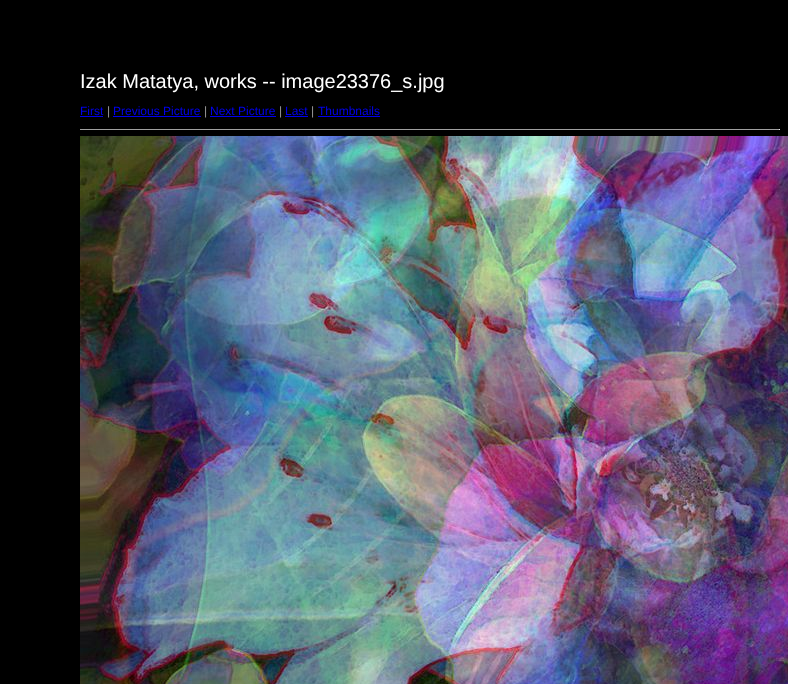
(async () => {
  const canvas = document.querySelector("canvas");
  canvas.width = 788;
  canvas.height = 684;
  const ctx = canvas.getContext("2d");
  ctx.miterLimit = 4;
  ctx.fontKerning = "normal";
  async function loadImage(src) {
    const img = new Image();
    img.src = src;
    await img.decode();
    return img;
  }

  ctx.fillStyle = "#000000";
  ctx.fillRect(0, 0, 788, 684);
  for (const [x, y, w, h, color] of [
    [80, 116, 23, 1, "#0000ee"],
    [113, 116, 88, 1, "#0000ee"],
    [210, 116, 66, 1, "#0000ee"],
    [285, 116, 23, 1, "#0000ee"],
    [318, 116, 62, 1, "#0000ee"],
    [80, 129, 700, 1, "#9f9f9f"],
    [779, 129, 1, 1, "#eeeeee"],
  ]) {
    ctx.fillStyle = color;
    ctx.fillRect(x, y, w, h);
  }
  ctx.drawImage(await loadImage("img/1.png"), 80, 136, 708, 548);
  ctx.font = "20px Liberation Sans";
  ctx.fillStyle = "#ffffff";
  ctx.fillText("Izak Matatya, works -- image23376_s.jpg", 80, 88);
  ctx.font = "12px Liberation Sans";
  ctx.fillStyle = "#0000ee";
  ctx.fillText("First", 80, 115);
  ctx.fillStyle = "#999999";
  ctx.fillText("|", 107, 115);
  ctx.fillStyle = "#0000ee";
  ctx.fillText("Previous Picture", 113, 115);
  ctx.fillStyle = "#999999";
  ctx.fillText("|", 204, 115);
  ctx.fillStyle = "#0000ee";
  ctx.fillText("Next Picture", 210, 115);
  ctx.fillStyle = "#999999";
  ctx.fillText("|", 279, 115);
  ctx.fillStyle = "#0000ee";
  ctx.fillText("Last", 285, 115);
  ctx.fillStyle = "#999999";
  ctx.fillText("|", 311, 115);
  ctx.fillStyle = "#0000ee";
  ctx.fillText("Thumbnails", 318, 115);
})();
